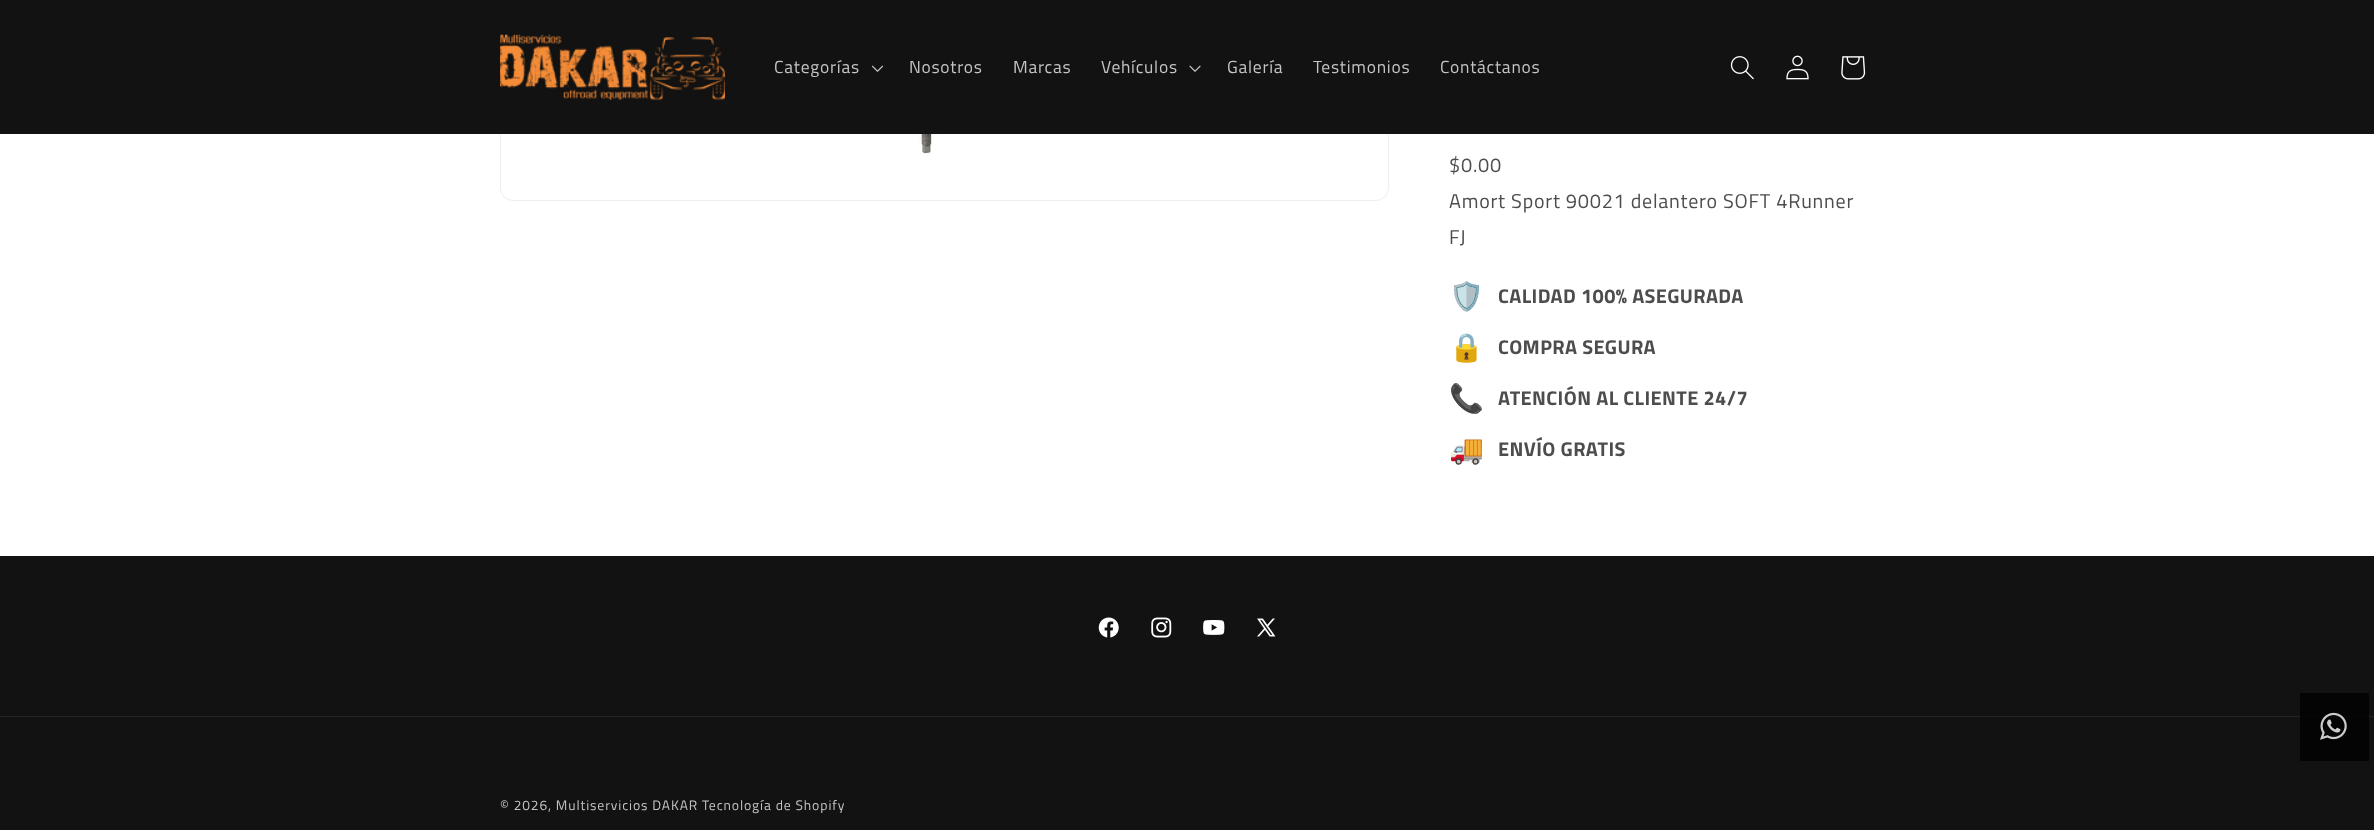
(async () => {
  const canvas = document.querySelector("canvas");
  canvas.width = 2374;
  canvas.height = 830;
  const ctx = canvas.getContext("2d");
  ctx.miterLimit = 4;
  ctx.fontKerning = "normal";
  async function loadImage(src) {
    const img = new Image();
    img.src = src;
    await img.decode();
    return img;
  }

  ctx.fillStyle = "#ffffff";
  ctx.fillRect(0, 0, 2374, 830);
  ctx.beginPath();
  ctx.roundRect(500.5, -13.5, 888, 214, 12.5);
  ctx.strokeStyle = "#eeeeee";
  ctx.stroke();
  ctx.fillStyle = "#121212";
  ctx.fillRect(0, 0, 2374, 134);
  ctx.drawImage(await loadImage("img/1.png"), 500, 34, 225, 66);
  ctx.drawImage(await loadImage("img/2.png"), 871, 65, 13, 7);
  ctx.drawImage(await loadImage("img/3.png"), 1189, 65, 12, 7);
  ctx.drawImage(await loadImage("img/4.png"), 1730, 56, 24, 24);
  ctx.drawImage(await loadImage("img/5.png"), 1786, 55, 23, 25);
  ctx.drawImage(await loadImage("img/6.png"), 1841, 56, 25, 24);
  ctx.drawImage(await loadImage("img/7.png"), 898, 134, 173, 20);
  for (const [x, y, w, h, color] of [
    [0, 556, 2374, 274, "#121212"],
    [2300, 693, 69, 68, "#040404"],
    [0, 716, 2374, 1, "#252525"],
    [2300, 716, 69, 1, "#070707"],
  ]) {
    ctx.fillStyle = color;
    ctx.fillRect(x, y, w, h);
  }
  ctx.drawImage(await loadImage("img/8.png"), 2320, 712, 27, 28);
  ctx.drawImage(await loadImage("img/9.png"), 1098, 617, 21, 21);
  ctx.drawImage(await loadImage("img/10.png"), 1151, 617, 21, 21);
  ctx.drawImage(await loadImage("img/11.png"), 1203, 620, 22, 15);
  ctx.drawImage(await loadImage("img/12.png"), 1257, 618, 19, 19);
  ctx.letterSpacing = "0.75px";
  ctx.font = "17.5px Titillium Web";
  ctx.fillStyle = "#c4c4c4";
  for (const [text, x, y] of [
    ["Categorías", 774, 73],
    ["Nosotros", 909, 73],
    ["Marcas", 1013, 73],
    ["Vehículos", 1101, 73],
    ["Galería", 1227, 73],
    ["Testimonios", 1313, 73],
    ["Contáctanos", 1440, 73],
  ]) {
    ctx.fillText(text, x, y);
  }
  ctx.font = "20px Titillium Web";
  ctx.fillStyle = "#4d4d4d";
  for (const [text, x, y] of [
    ["$0.00", 1449, 172],
    ["Amort Sport 90021 delantero SOFT 4Runner", 1449, 208],
    ["FJ", 1449, 244],
  ]) {
    ctx.fillText(text, x, y);
  }
  ctx.letterSpacing = "0.4px";
  ctx.font = "bold 28px Noto Color Emoji";
  ctx.fillText("🛡️", 1449, 306);
  ctx.font = "bold 20px Titillium Web";
  ctx.fillText("CALIDAD 100% ASEGURADA", 1498, 303);
  ctx.font = "bold 28px Noto Color Emoji";
  ctx.fillText("🔒", 1449, 357);
  ctx.font = "bold 20px Titillium Web";
  ctx.fillText("COMPRA SEGURA", 1498, 354);
  ctx.font = "bold 28px Noto Color Emoji";
  ctx.fillText("📞", 1449, 408);
  ctx.font = "bold 20px Titillium Web";
  ctx.fillText("ATENCIÓN AL CLIENTE 24/7", 1498, 405);
  ctx.font = "bold 28px Noto Color Emoji";
  ctx.fillText("🚚", 1449, 459);
  ctx.font = "bold 20px Titillium Web";
  ctx.fillText("ENVÍO GRATIS", 1498, 456);
  ctx.letterSpacing = "0.88px";
  ctx.font = "13.75px Titillium Web";
  ctx.fillStyle = "#c4c4c4";
  ctx.fillText("© 2026, Multiservicios DAKAR Tecnología de Shopify", 500, 810);
})();
